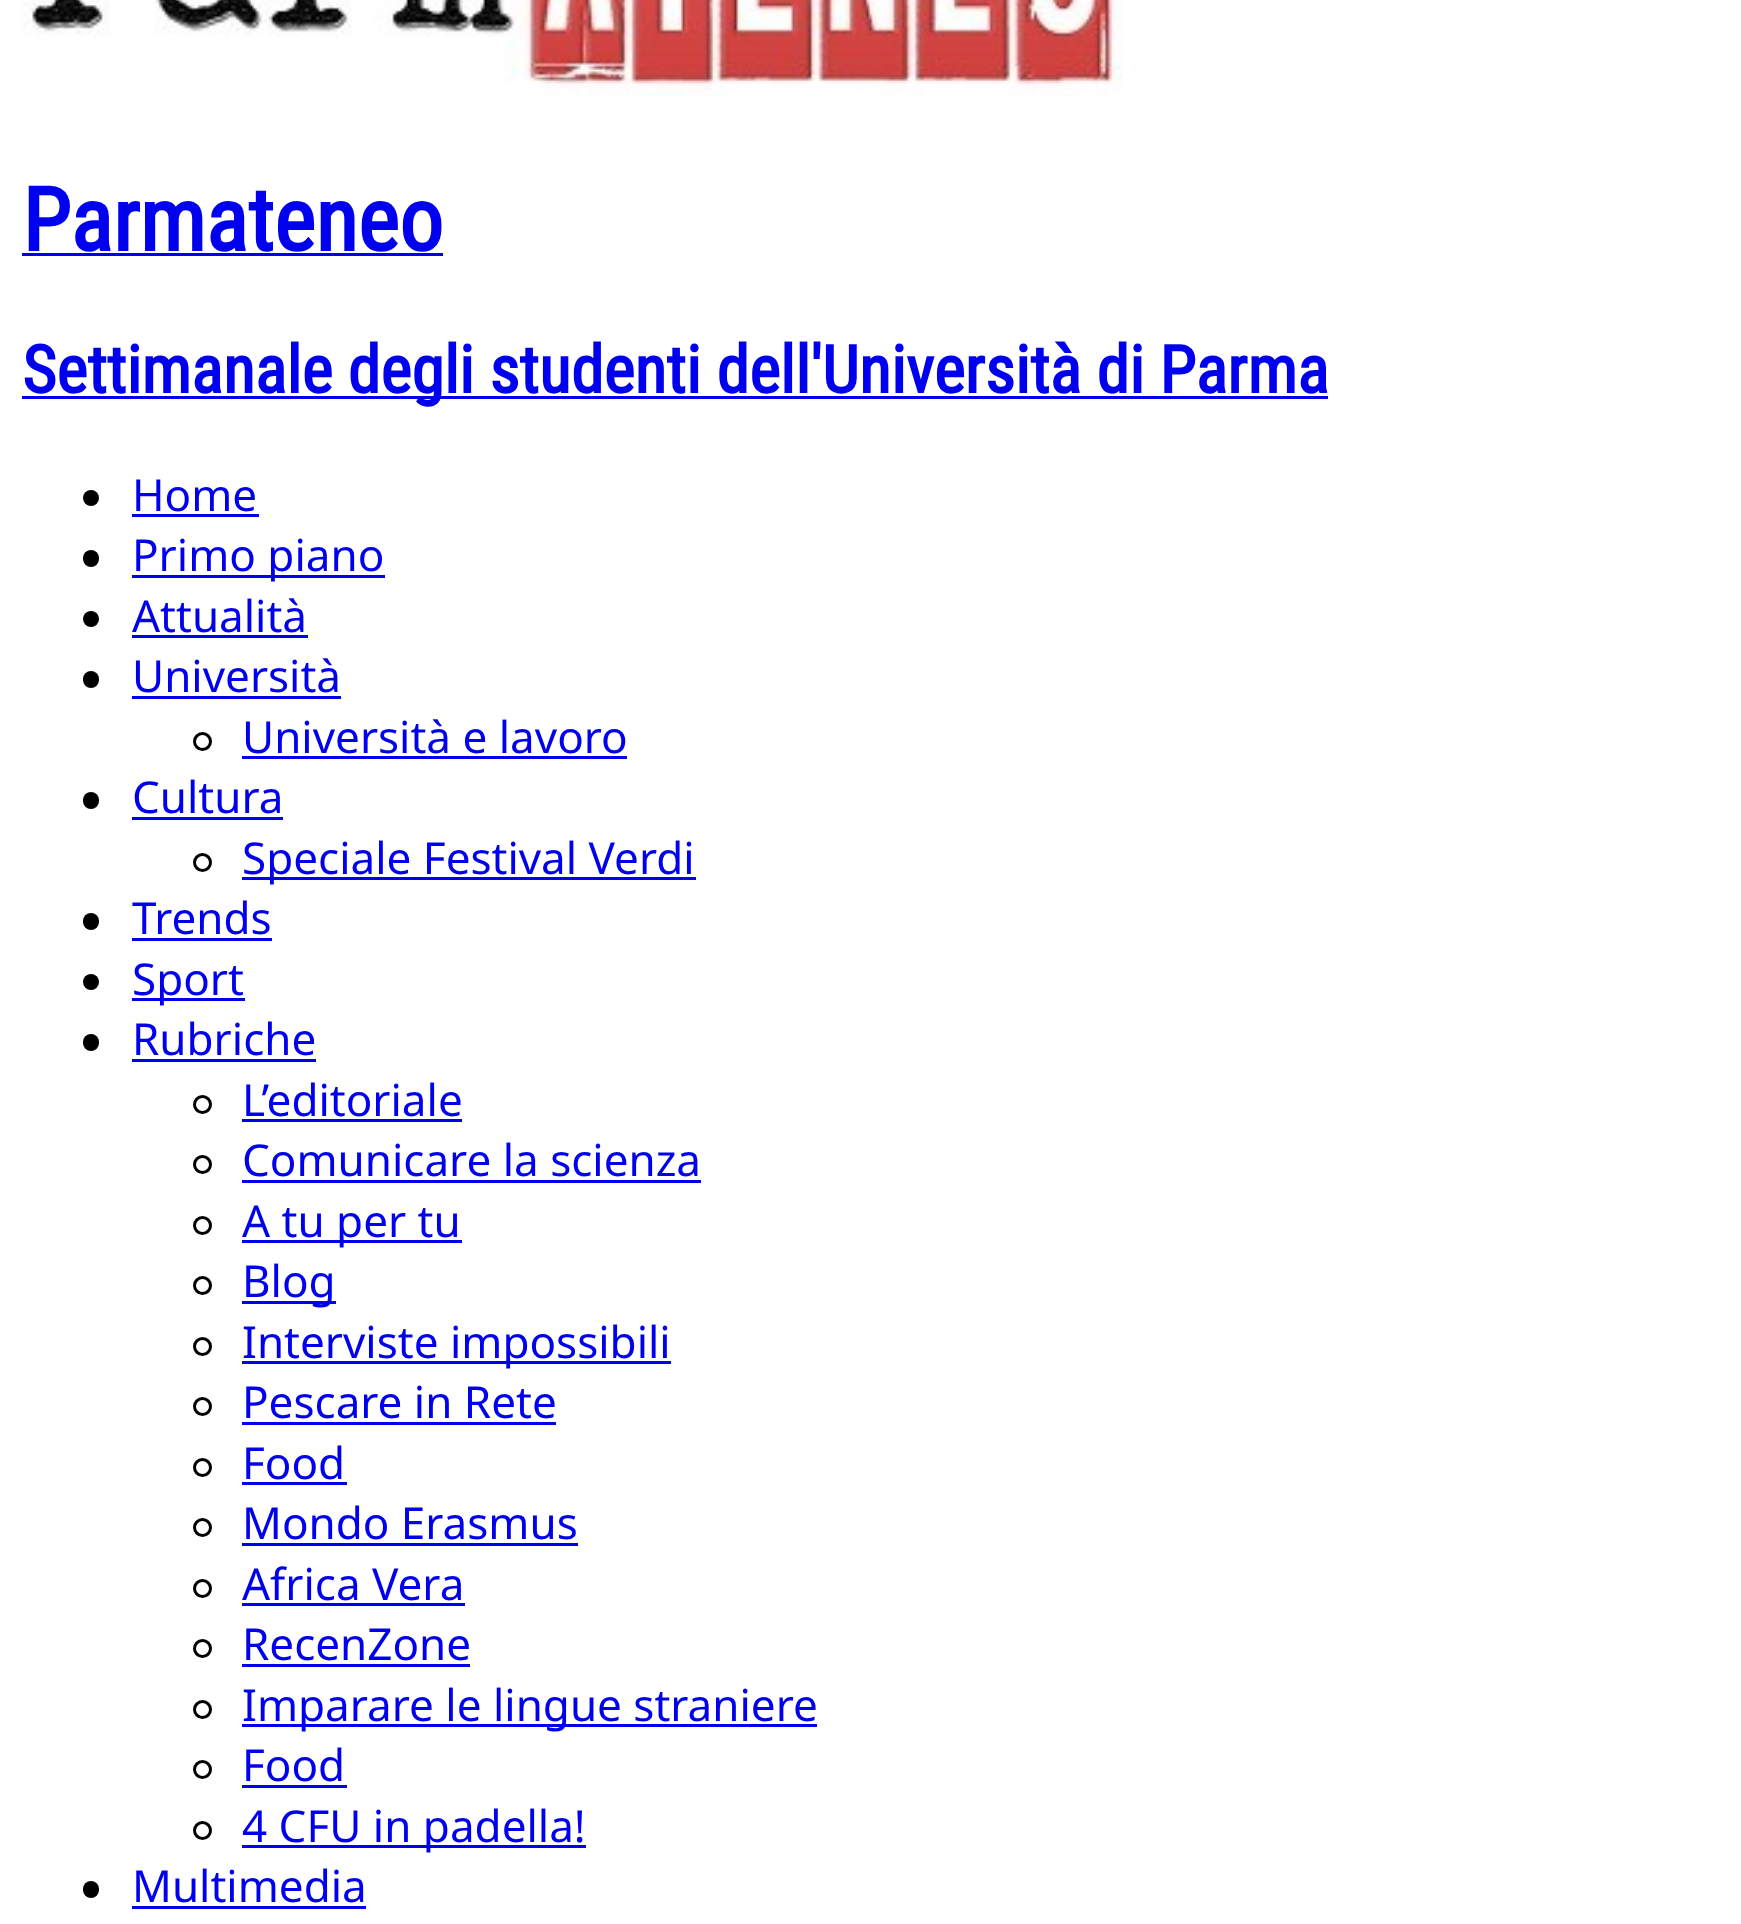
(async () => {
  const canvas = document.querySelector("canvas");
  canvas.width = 1741;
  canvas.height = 1924;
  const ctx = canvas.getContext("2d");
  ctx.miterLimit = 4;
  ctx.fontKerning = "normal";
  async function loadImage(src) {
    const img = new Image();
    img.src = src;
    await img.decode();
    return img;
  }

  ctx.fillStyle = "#ffffff";
  ctx.fillRect(0, 0, 1741, 1924);
  ctx.drawImage(await loadImage("img/1.png"), 22, 0, 1100, 97);
  ctx.fillStyle = "#0000ee";
  ctx.fillRect(22, 253, 421, 3);
  ctx.fillRect(22, 396, 1306, 3);
  ctx.fillStyle = "#000000";
  ctx.beginPath();
  ctx.arc(91, 498, 8, 0, Math.PI * 2);
  ctx.fill();
  ctx.fillStyle = "#0000ee";
  ctx.fillRect(132, 514, 127, 3);
  ctx.fillStyle = "#000000";
  ctx.beginPath();
  ctx.roundRect(83, 550, 16, 17, 8);
  ctx.fill();
  ctx.fillStyle = "#0000ee";
  ctx.fillRect(132, 575, 253, 3);
  ctx.fillStyle = "#000000";
  ctx.beginPath();
  ctx.arc(91, 619, 8, 0, Math.PI * 2);
  ctx.fill();
  ctx.fillStyle = "#0000ee";
  ctx.fillRect(132, 635, 176, 3);
  ctx.fillStyle = "#000000";
  ctx.beginPath();
  ctx.roundRect(83, 671, 16, 17, 8);
  ctx.fill();
  ctx.fillStyle = "#0000ee";
  ctx.fillRect(132, 696, 209, 3);
  ctx.beginPath();
  ctx.arc(202.5, 741.5, 8, 0, Math.PI * 2);
  ctx.strokeStyle = "#000000";
  ctx.lineWidth = 3;
  ctx.stroke();
  ctx.fillRect(242, 756, 385, 3);
  ctx.fillStyle = "#000000";
  ctx.beginPath();
  ctx.roundRect(83, 792, 16, 17, 8);
  ctx.fill();
  ctx.fillStyle = "#0000ee";
  ctx.fillRect(132, 817, 151, 3);
  ctx.beginPath();
  ctx.arc(202.5, 862.5, 8, 0, Math.PI * 2);
  ctx.stroke();
  ctx.fillRect(242, 877, 454, 3);
  ctx.fillStyle = "#000000";
  ctx.beginPath();
  ctx.roundRect(83, 913, 16, 17, 8);
  ctx.fill();
  ctx.fillStyle = "#0000ee";
  ctx.fillRect(132, 938, 140, 3);
  ctx.fillStyle = "#000000";
  ctx.beginPath();
  ctx.arc(91, 982, 8, 0, Math.PI * 2);
  ctx.fill();
  ctx.fillStyle = "#0000ee";
  ctx.fillRect(132, 998, 113, 3);
  ctx.fillStyle = "#000000";
  ctx.beginPath();
  ctx.roundRect(83, 1034, 16, 17, 8);
  ctx.fill();
  ctx.fillStyle = "#0000ee";
  ctx.fillRect(132, 1059, 184, 3);
  ctx.beginPath();
  ctx.arc(202.5, 1104.5, 8, 0, Math.PI * 2);
  ctx.stroke();
  ctx.fillRect(242, 1119, 220, 3);
  ctx.beginPath();
  ctx.arc(202.5, 1164.5, 8, 0, Math.PI * 2);
  ctx.stroke();
  ctx.fillRect(242, 1180, 459, 3);
  ctx.beginPath();
  ctx.arc(202.5, 1225.5, 8, 0, Math.PI * 2);
  ctx.stroke();
  ctx.fillRect(242, 1240, 220, 3);
  ctx.beginPath();
  ctx.arc(202.5, 1285.5, 8, 0, Math.PI * 2);
  ctx.stroke();
  ctx.fillRect(242, 1301, 94, 3);
  ctx.beginPath();
  ctx.arc(202.5, 1346.5, 8, 0, Math.PI * 2);
  ctx.stroke();
  ctx.fillRect(242, 1361, 429, 3);
  ctx.beginPath();
  ctx.arc(202.5, 1406.5, 8, 0, Math.PI * 2);
  ctx.stroke();
  ctx.fillRect(242, 1422, 314, 3);
  ctx.beginPath();
  ctx.arc(202.5, 1467.5, 8, 0, Math.PI * 2);
  ctx.stroke();
  ctx.fillRect(242, 1482, 105, 3);
  ctx.beginPath();
  ctx.arc(202.5, 1527.5, 8, 0, Math.PI * 2);
  ctx.stroke();
  ctx.fillRect(242, 1543, 336, 3);
  ctx.beginPath();
  ctx.arc(202.5, 1588.5, 8, 0, Math.PI * 2);
  ctx.stroke();
  ctx.fillRect(242, 1603, 223, 3);
  ctx.beginPath();
  ctx.arc(202.5, 1648.5, 8, 0, Math.PI * 2);
  ctx.stroke();
  ctx.fillRect(242, 1664, 228, 3);
  ctx.beginPath();
  ctx.arc(202.5, 1709.5, 8, 0, Math.PI * 2);
  ctx.stroke();
  ctx.fillRect(242, 1724, 575, 3);
  ctx.beginPath();
  ctx.arc(202.5, 1769.5, 8, 0, Math.PI * 2);
  ctx.stroke();
  ctx.fillRect(242, 1785, 105, 3);
  ctx.beginPath();
  ctx.arc(202.5, 1830.5, 8, 0, Math.PI * 2);
  ctx.stroke();
  ctx.fillRect(242, 1845, 344, 3);
  ctx.fillStyle = "#000000";
  ctx.beginPath();
  ctx.roundRect(83, 1881, 16, 17, 8);
  ctx.fill();
  ctx.fillStyle = "#0000ee";
  ctx.fillRect(132, 1906, 234, 3);
  ctx.font = "bold 88px Roboto Condensed";
  ctx.fillText("Parmateneo", 22, 251);
  ctx.font = "bold 66px Roboto Condensed";
  ctx.fillText("Settimanale degli studenti dell'Università di Parma", 22, 393);
  ctx.font = "44px Noto Sans";
  for (const [text, x, y] of [
    ["Home", 132, 511],
    ["Primo piano", 132, 571],
    ["Attualità", 132, 632],
    ["Università", 132, 692],
    ["Università e lavoro", 242, 753],
    ["Cultura", 132, 813],
    ["Speciale Festival Verdi", 242, 874],
    ["Trends", 132, 934],
    ["Sport", 132, 995],
    ["Rubriche", 132, 1055],
    ["L’editoriale", 242, 1116],
    ["Comunicare la scienza", 242, 1176],
    ["A tu per tu", 242, 1237],
    ["Blog", 242, 1297],
    ["Interviste impossibili", 242, 1358],
    ["Pescare in Rete", 242, 1418],
    ["Food", 242, 1479],
    ["Mondo Erasmus", 242, 1539],
    ["Africa Vera", 242, 1600],
    ["RecenZone", 242, 1660],
    ["Imparare le lingue straniere", 242, 1721],
    ["Food", 242, 1781],
    ["4 CFU in padella!", 242, 1842],
    ["Multimedia", 132, 1902],
  ]) {
    ctx.fillText(text, x, y);
  }
})();
